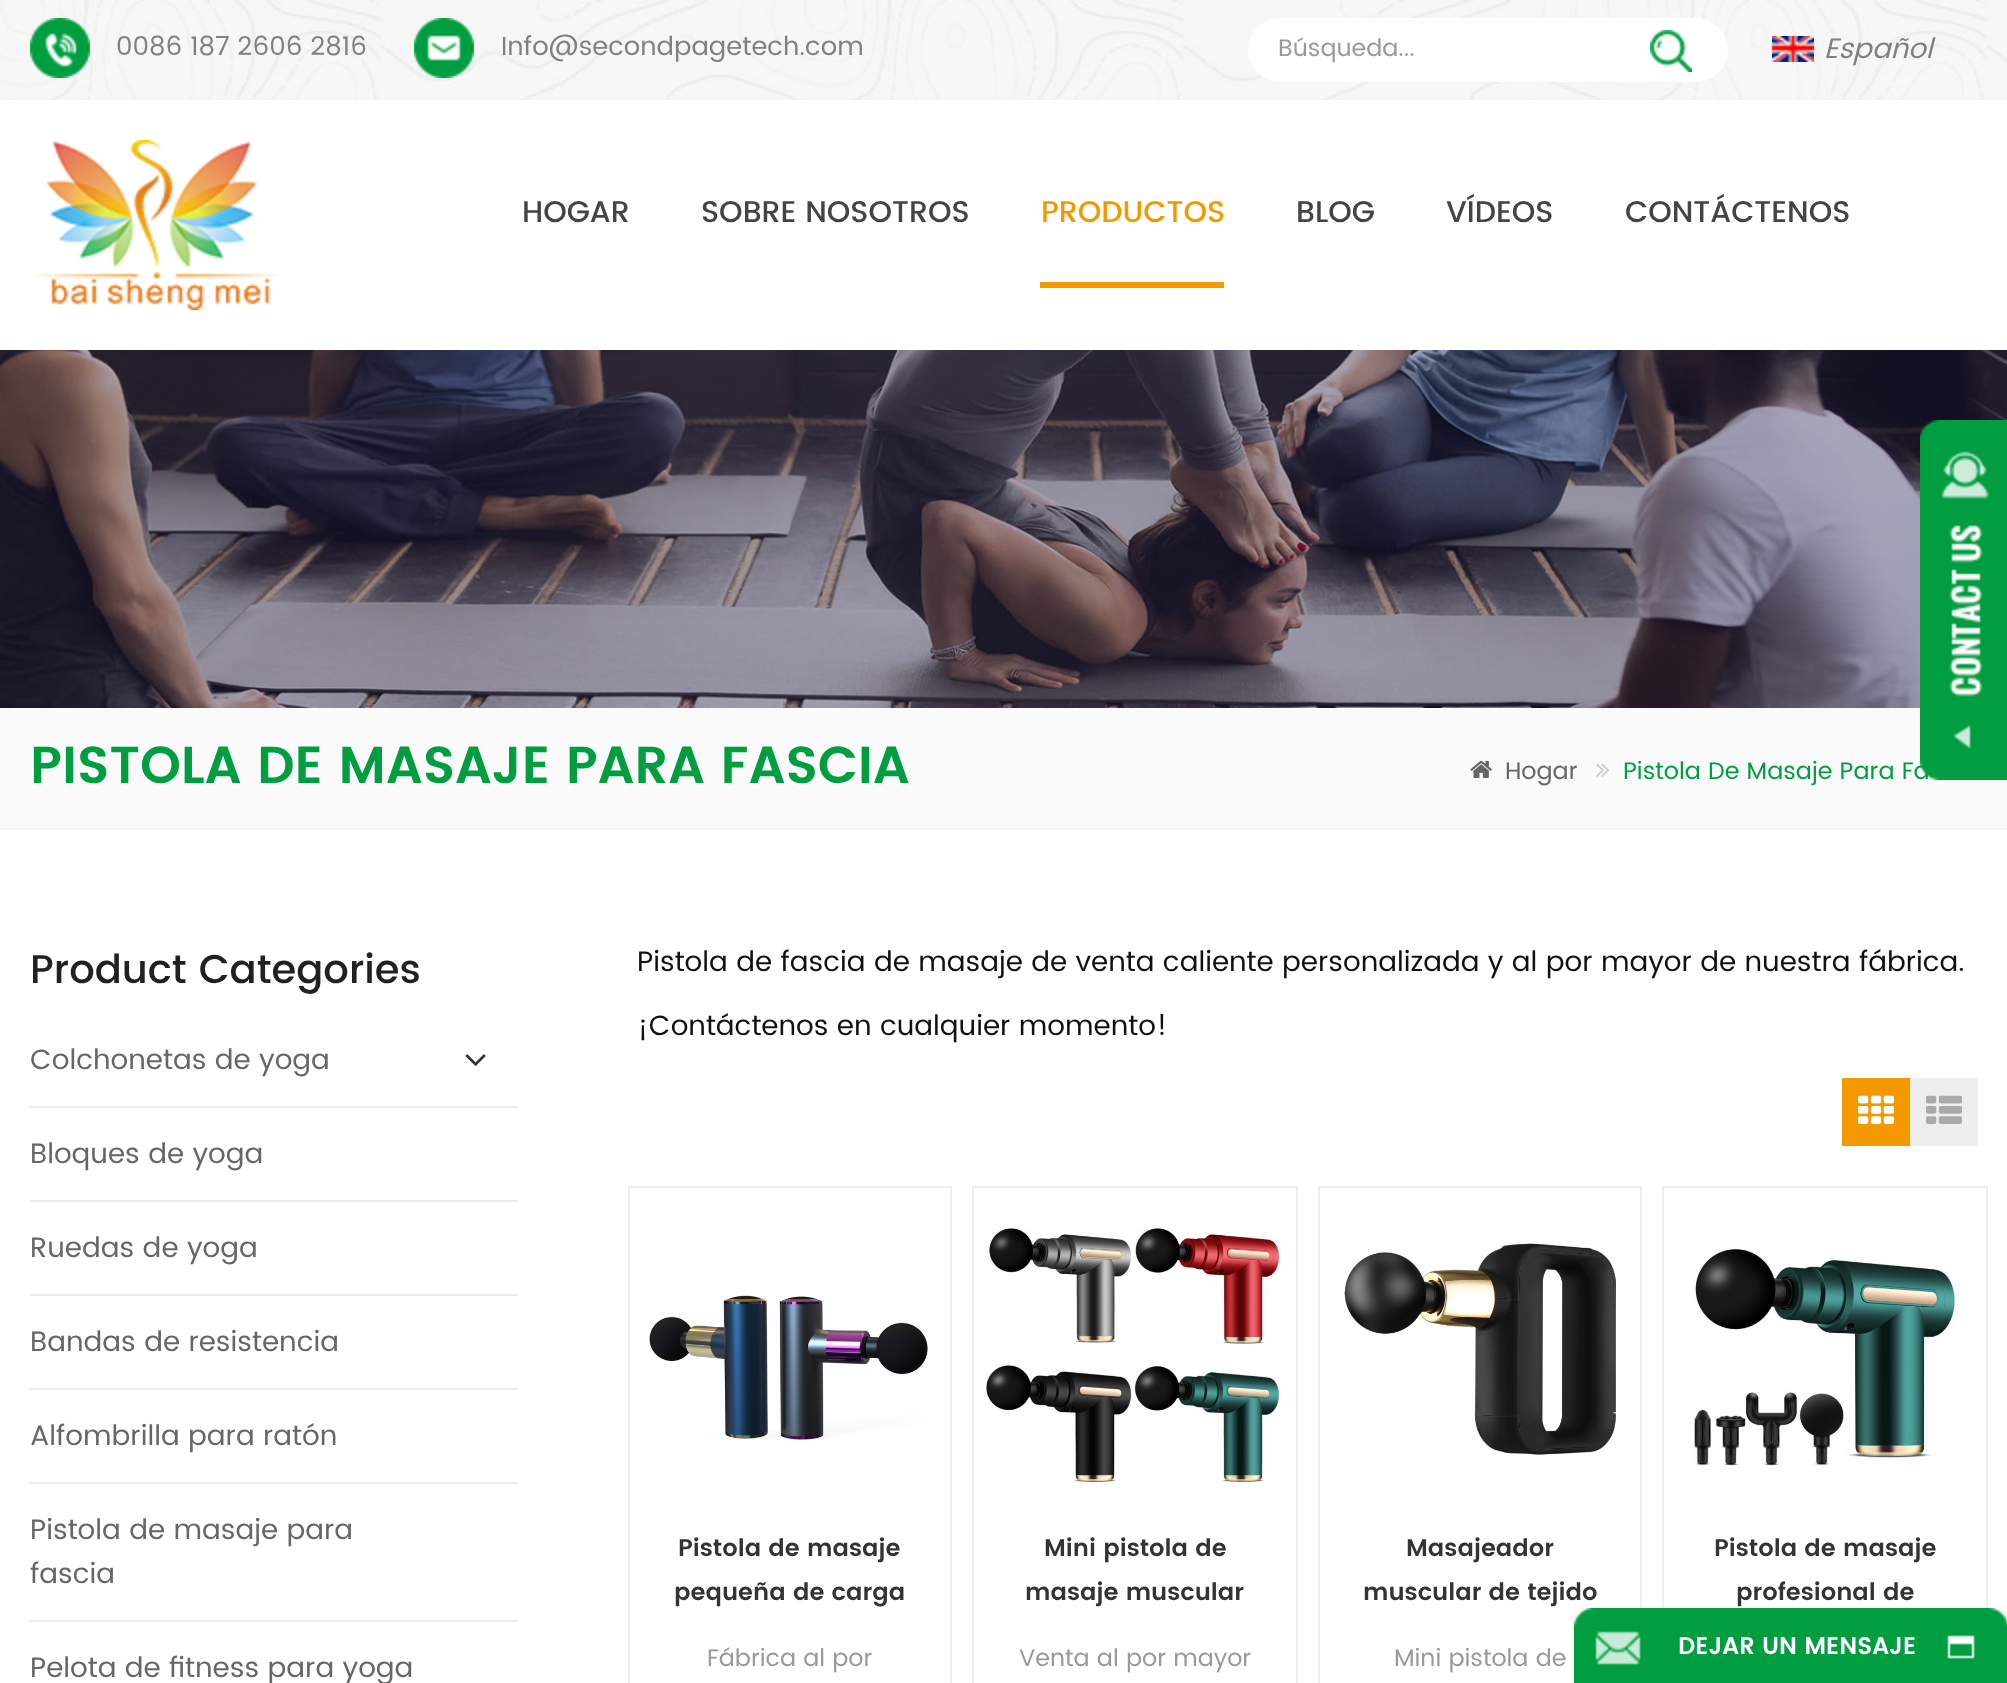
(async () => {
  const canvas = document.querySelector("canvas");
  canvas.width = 2007;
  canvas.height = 1683;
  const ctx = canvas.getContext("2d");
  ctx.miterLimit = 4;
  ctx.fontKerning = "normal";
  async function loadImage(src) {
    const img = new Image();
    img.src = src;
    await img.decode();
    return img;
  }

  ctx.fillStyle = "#ffffff";
  ctx.fillRect(0, 0, 2007, 1683);
  ctx.drawImage(await loadImage("img/1.png"), 0, 0, 2007, 100);
  ctx.drawImage(await loadImage("img/2.png"), 30, 18, 60, 60);
  ctx.drawImage(await loadImage("img/3.png"), 414, 18, 60, 60);
  ctx.fillStyle = "#fefefe";
  ctx.beginPath();
  ctx.roundRect(1248, 18, 480, 64, 32);
  ctx.fill();
  ctx.drawImage(await loadImage("img/4.png"), 1650, 30, 42, 42);
  ctx.drawImage(await loadImage("img/5.png"), 1772, 36, 42, 26);
  ctx.drawImage(await loadImage("img/6.png"), 33, 140, 248, 170);
  ctx.fillStyle = "#f39800";
  ctx.fillRect(1040, 282, 184, 6);
  ctx.drawImage(await loadImage("img/7.png"), 0, 350, 2007, 358);
  ctx.fillStyle = "#fafafa";
  ctx.fillRect(0, 708, 2007, 120);
  ctx.fillStyle = "#f3f3f3";
  ctx.fillRect(0, 828, 2007, 2);
  ctx.drawImage(await loadImage("img/8.png"), 1470, 760, 22, 18);
  ctx.drawImage(await loadImage("img/9.png"), 1596, 763, 13, 14);
  ctx.fillStyle = "#ececec";
  ctx.fillRect(30, 1106, 488, 2);
  ctx.drawImage(await loadImage("img/11.png"), 465, 1054, 21, 12);
  for (const [x, y, w, h, color] of [
    [30, 1200, 488, 2, "#ececec"],
    [30, 1294, 488, 2, "#ececec"],
    [30, 1388, 488, 2, "#ececec"],
    [30, 1482, 488, 2, "#ececec"],
    [30, 1620, 488, 2, "#ececec"],
    [1842, 1078, 68, 68, "#f39800"],
  ]) {
    ctx.fillStyle = color;
    ctx.fillRect(x, y, w, h);
  }
  ctx.drawImage(await loadImage("img/12.png"), 1858, 1095, 36, 29);
  ctx.fillStyle = "#eeeeee";
  ctx.fillRect(1910, 1078, 68, 68);
  ctx.drawImage(await loadImage("img/13.png"), 1926, 1095, 36, 29);
  ctx.strokeStyle = "#eeeeee";
  ctx.lineWidth = 2;
  ctx.strokeRect(629, 1187, 322, 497);
  ctx.drawImage(await loadImage("img/14.png"), 649, 1295, 279, 145);
  ctx.strokeRect(973, 1187, 324, 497);
  ctx.drawImage(await loadImage("img/15.png"), 986, 1228, 294, 255);
  ctx.strokeRect(1319, 1187, 322, 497);
  ctx.drawImage(await loadImage("img/16.png"), 1344, 1243, 272, 212);
  ctx.strokeRect(1663, 1187, 324, 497);
  ctx.drawImage(await loadImage("img/17.png"), 1694, 1248, 262, 218);
  ctx.drawImage(await loadImage("img/18.png"), 1574, 1608, 433, 75);
  ctx.font = "26px Poppins";
  ctx.fillStyle = "#808080";
  ctx.fillText("0086 187 2606 2816", 116, 55);
  ctx.fillText("Info@secondpagetech.com", 501, 55);
  ctx.font = "24px Poppins";
  ctx.fillStyle = "#999999";
  ctx.fillText("Búsqueda...", 1278, 56);
  ctx.font = "italic 28px Poppins";
  ctx.fillStyle = "#808080";
  ctx.fillText("Español", 1824, 58);
  ctx.font = "500 30px Poppins";
  ctx.fillStyle = "#444444";
  ctx.fillText("HOGAR", 522, 222);
  ctx.fillText("SOBRE NOSOTROS", 701, 222);
  ctx.fillStyle = "#f39800";
  ctx.fillText("PRODUCTOS", 1041, 222);
  ctx.fillStyle = "#444444";
  for (const [text, x, y] of [
    ["BLOG", 1296, 222],
    ["VÍDEOS", 1446, 222],
    ["CONTÁCTENOS", 1625, 222],
  ]) {
    ctx.fillText(text, x, y);
  }
  ctx.font = "600 52px Poppins";
  ctx.fillStyle = "#009e41";
  ctx.fillText("PISTOLA DE MASAJE PARA FASCIA", 30, 783);
  ctx.font = "24px Poppins";
  ctx.fillStyle = "#666666";
  ctx.fillText("Hogar", 1505, 779);
  ctx.fillStyle = "#009e41";
  ctx.fillText("Pistola De Masaje Para Fa", 1623, 779);
  ctx.drawImage(await loadImage("img/10.png"), 1920, 420, 87, 360);
  ctx.font = "500 40px Poppins";
  ctx.fillStyle = "#212121";
  ctx.fillText("Product Categories", 30, 983);
  ctx.font = "28px Poppins";
  ctx.fillStyle = "#666666";
  for (const [text, x, y] of [
    ["Colchonetas de yoga", 30, 1069],
    ["Bloques de yoga", 30, 1163],
    ["Ruedas de yoga", 30, 1257],
    ["Bandas de resistencia", 30, 1351],
    ["Alfombrilla para ratón", 30, 1445],
    ["Pistola de masaje para", 30, 1539],
    ["fascia", 30, 1583],
    ["Pelota de fitness para yoga", 30, 1677],
  ]) {
    ctx.fillText(text, x, y);
  }
  ctx.fillStyle = "#0f1111";
  ctx.fillText("Pistola de fascia de masaje de venta caliente personalizada y al por mayor de nuestra fábrica.", 637, 971);
  ctx.fillText("¡Contáctenos en cualquier momento!", 637, 1035);
  ctx.font = "600 24px Poppins";
  ctx.fillStyle = "#333333";
  ctx.fillText("Pistola de masaje", 678, 1556);
  ctx.fillText("pequeña de carga", 674, 1600);
  ctx.font = "24px Poppins";
  ctx.fillStyle = "#999999";
  ctx.fillText("Fábrica al por", 707, 1666);
  ctx.font = "600 24px Poppins";
  ctx.fillStyle = "#333333";
  ctx.fillText("Mini pistola de", 1044, 1556);
  ctx.fillText("masaje muscular", 1025, 1600);
  ctx.font = "24px Poppins";
  ctx.fillStyle = "#999999";
  ctx.fillText("Venta al por mayor", 1019, 1666);
  ctx.font = "600 24px Poppins";
  ctx.fillStyle = "#333333";
  ctx.fillText("Masajeador", 1406, 1556);
  ctx.fillText("muscular de tejido", 1363, 1600);
  ctx.font = "24px Poppins";
  ctx.fillStyle = "#999999";
  ctx.fillText("Mini pistola de", 1394, 1666);
  ctx.font = "600 24px Poppins";
  ctx.fillStyle = "#333333";
  ctx.fillText("Pistola de masaje", 1714, 1556);
  ctx.fillText("profesional de", 1736, 1600);
  ctx.fillStyle = "#ffffff";
  ctx.fillText("DEJAR UN MENSAJE", 1678, 1654);
})();
